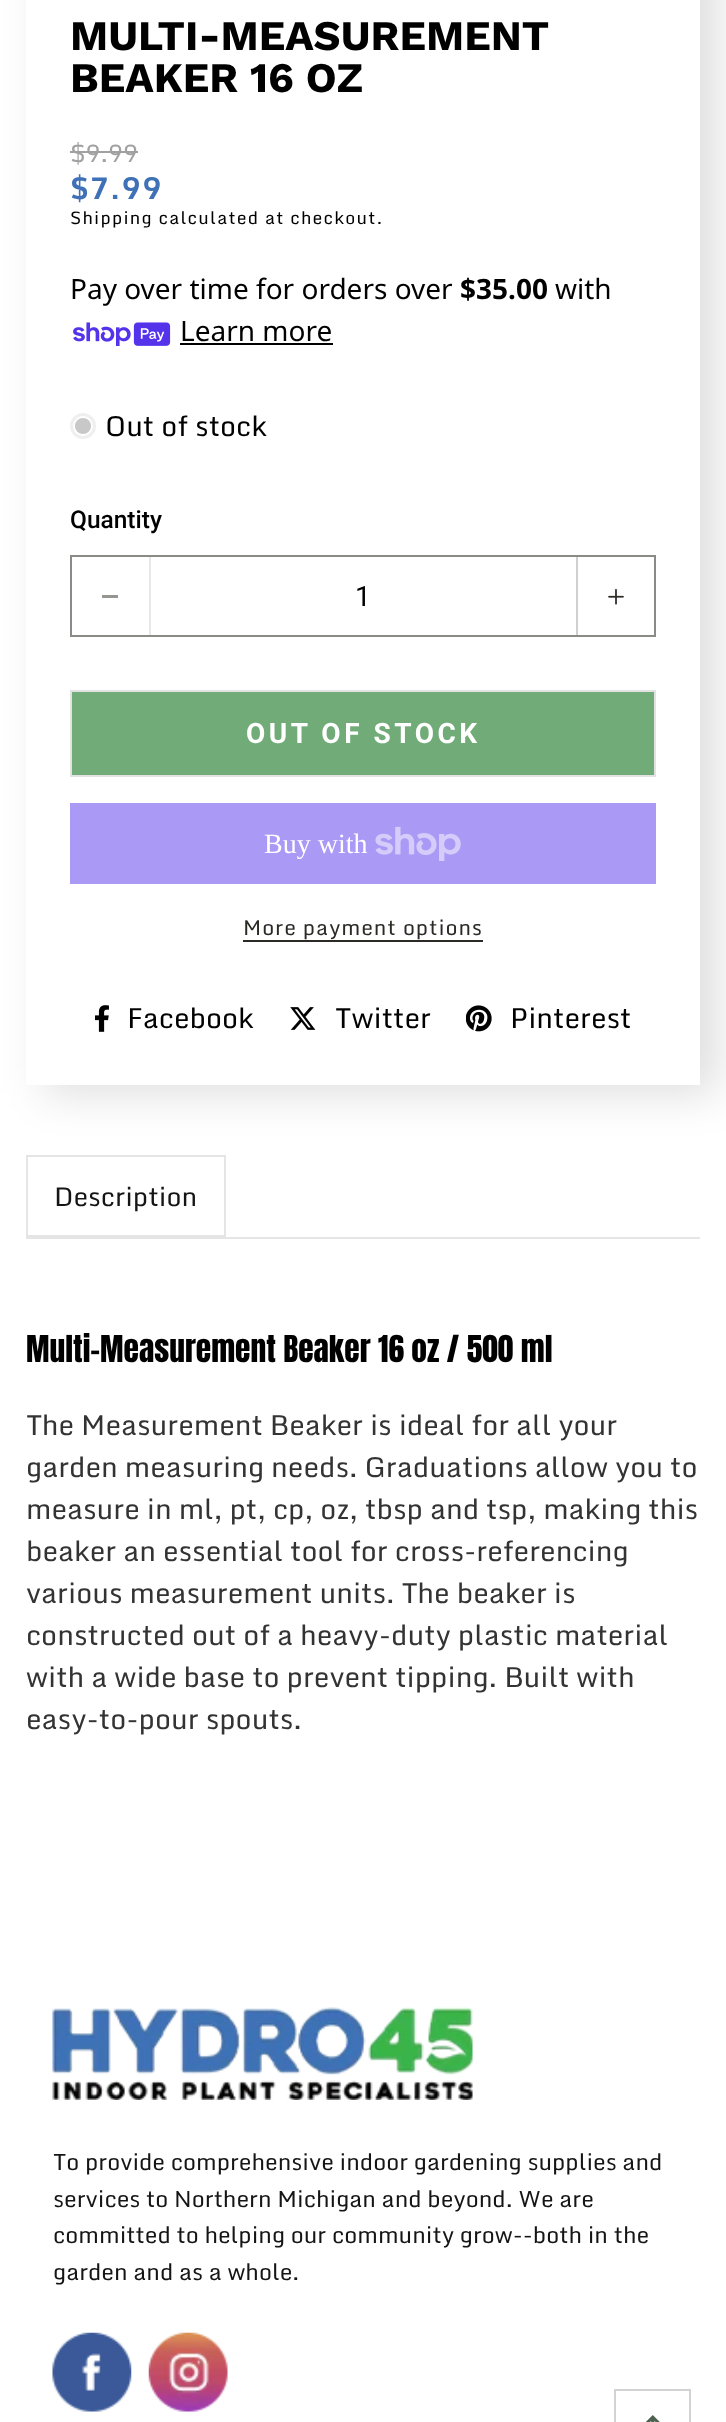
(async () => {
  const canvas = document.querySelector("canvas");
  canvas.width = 726;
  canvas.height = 2422;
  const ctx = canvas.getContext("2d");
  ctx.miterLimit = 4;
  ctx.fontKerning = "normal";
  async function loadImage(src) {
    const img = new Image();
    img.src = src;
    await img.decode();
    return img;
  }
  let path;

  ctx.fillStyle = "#ffffff";
  ctx.fillRect(0, 0, 726, 2422);
  ctx.strokeStyle = "#e5e5e5";
  ctx.lineWidth = 2;
  ctx.strokeRect(27, 1156, 198, 80);
  ctx.save();
  path = new Path2D("M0 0H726V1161H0ZM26-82H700V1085H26Z");
  ctx.clip(path, "evenodd");
  ctx.fillStyle = "rgba(0, 0, 0, 0.13)";
  ctx.filter = "blur(22px)";
  ctx.beginPath();
  ctx.rect(44, -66, 674, 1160);
  ctx.fill();
  ctx.filter = "none";
  ctx.restore();
  ctx.fillStyle = "#a1a1a1";
  ctx.fillRect(70, 151, 68, 2);
  ctx.drawImage(await loadImage("img/1.png"), 73, 322, 98, 24);
  ctx.fillStyle = "#000000";
  ctx.fillRect(180, 343, 153, 2);
  ctx.fillStyle = "#efefef";
  ctx.beginPath();
  ctx.arc(83, 426, 13, 0, Math.PI * 2);
  ctx.fill();
  ctx.fillStyle = "#c8c8c8";
  ctx.beginPath();
  ctx.arc(83, 426, 9, 0, Math.PI * 2);
  ctx.fill();
  ctx.strokeStyle = "#ffffff";
  ctx.lineWidth = 1.8;
  ctx.stroke();
  ctx.strokeStyle = "#8b8a87";
  ctx.lineWidth = 2;
  ctx.strokeRect(71, 556, 584, 80);
  for (const [x, y, w, h, color] of [
    [149, 557, 2, 78, "#e8e8e8"],
    [102, 595, 16, 3, "#969592"],
    [576, 557, 2, 78, "#d0d0d0"],
  ]) {
    ctx.fillStyle = color;
    ctx.fillRect(x, y, w, h);
  }
  ctx.drawImage(await loadImage("img/2.png"), 608, 588, 16, 17);
  ctx.fillStyle = "#71ab78";
  ctx.beginPath();
  ctx.rect(71, 691, 584, 85);
  ctx.fill();
  ctx.strokeStyle = "#e2e2e2";
  ctx.stroke();
  ctx.fillStyle = "#aa99f5";
  ctx.fillRect(70, 803, 586, 81);
  ctx.drawImage(await loadImage("img/3.png"), 375, 826, 86, 35);
  ctx.fillStyle = "#2c2a25";
  ctx.fillRect(243, 940, 240, 2);
  ctx.drawImage(await loadImage("img/4.png"), 95, 1005, 14, 27);
  ctx.drawImage(await loadImage("img/5.png"), 290, 1007, 26, 23);
  ctx.drawImage(await loadImage("img/6.png"), 466, 1005, 26, 27);
  ctx.fillStyle = "#e5e5e5";
  ctx.fillRect(26, 1237, 674, 2);
  ctx.drawImage(await loadImage("img/7.png"), 52, 2007, 421, 93);
  ctx.drawImage(await loadImage("img/8.png"), 52, 2332, 80, 80);
  ctx.drawImage(await loadImage("img/9.png"), 148, 2332, 80, 80);
  ctx.strokeStyle = "#d3d3d3";
  ctx.strokeRect(615, 2390, 75, 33);
  ctx.drawImage(await loadImage("img/10.png"), 645, 2415, 15, 7);
  ctx.font = "bold 42px Work Sans";
  ctx.fillStyle = "#000000";
  ctx.fillText("MULTI-MEASUREMENT", 70, 50);
  ctx.fillText("BEAKER 16 OZ", 70, 92);
  ctx.font = "24.5px Monda";
  ctx.fillStyle = "#a1a1a1";
  ctx.fillText("$9.99", 70, 162);
  ctx.font = "bold 30px Monda";
  ctx.fillStyle = "#3f71b7";
  ctx.fillText("$7.99", 70, 199);
  ctx.letterSpacing = "1.25px";
  ctx.font = "17.5px Monda";
  ctx.fillStyle = "#000000";
  ctx.fillText("Shipping calculated at checkout.", 70, 224);
  ctx.letterSpacing = "0px";
  ctx.font = "28px Noto Sans";
  ctx.fillText("Pay over time for orders over", 70, 299);
  ctx.font = "bold 28px Noto Sans";
  ctx.fillText("$35.00", 460, 299);
  ctx.font = "28px Noto Sans";
  ctx.fillText("with", 555, 299);
  ctx.fillText("Learn more", 180, 341);
  ctx.font = "28px Monda";
  ctx.fillText("Out of stock", 105, 436);
  ctx.font = "500 24.5px Roboto";
  ctx.fillText("Quantity", 70, 528);
  ctx.font = "28px Roboto";
  ctx.fillText("1", 355, 606);
  ctx.letterSpacing = "3.5px";
  ctx.font = "bold 28px Roboto";
  ctx.fillStyle = "#ffffff";
  ctx.fillText("OUT OF STOCK", 246, 743);
  ctx.letterSpacing = "0px";
  ctx.font = "28px Liberation Serif";
  ctx.fillText("Buy with", 264, 853);
  ctx.letterSpacing = "0.9px";
  ctx.font = "21px Monda";
  ctx.fillStyle = "#2c2a25";
  ctx.fillText("More payment options", 243, 935);
  ctx.letterSpacing = "0px";
  ctx.font = "28px Monda";
  ctx.fillStyle = "#000000";
  for (const [text, x, y] of [
    ["Facebook", 127, 1028],
    ["Twitter", 335, 1028],
    ["Pinterest", 510, 1028],
  ]) {
    ctx.fillText(text, x, y);
  }
  ctx.font = "26.25px Monda";
  ctx.fillStyle = "#151515";
  ctx.fillText("Description", 54, 1206);
  ctx.font = "31.5px Anton";
  ctx.fillStyle = "#000000";
  ctx.fillText("Multi-Measurement Beaker 16 oz / 500 ml", 26, 1362);
  ctx.font = "28px Monda";
  ctx.fillStyle = "#343334";
  for (const [text, x, y] of [
    ["The Measurement Beaker is ideal for all your", 26, 1435],
    ["garden measuring needs. Graduations allow you to", 26, 1477],
    ["measure in ml, pt, cp, oz, tbsp and tsp, making this", 26, 1519],
    ["beaker an essential tool for cross-referencing", 26, 1561],
    ["various measurement units. The beaker is", 26, 1603],
    ["constructed out of a heavy-duty plastic material", 26, 1645],
    ["with a wide base to prevent tipping. Built with", 26, 1687],
    ["easy-to-pour spouts.", 26, 1729],
  ]) {
    ctx.fillText(text, x, y);
  }
  ctx.font = "22.75px Monda";
  ctx.fillStyle = "#151515";
  for (const [text, x, y] of [
    ["To provide comprehensive indoor gardening supplies and", 53, 2170],
    ["services to Northern Michigan and beyond. We are", 53, 2207],
    ["committed to helping our community grow--both in the", 53, 2243],
    ["garden and as a whole.", 53, 2280],
  ]) {
    ctx.fillText(text, x, y);
  }
})();
